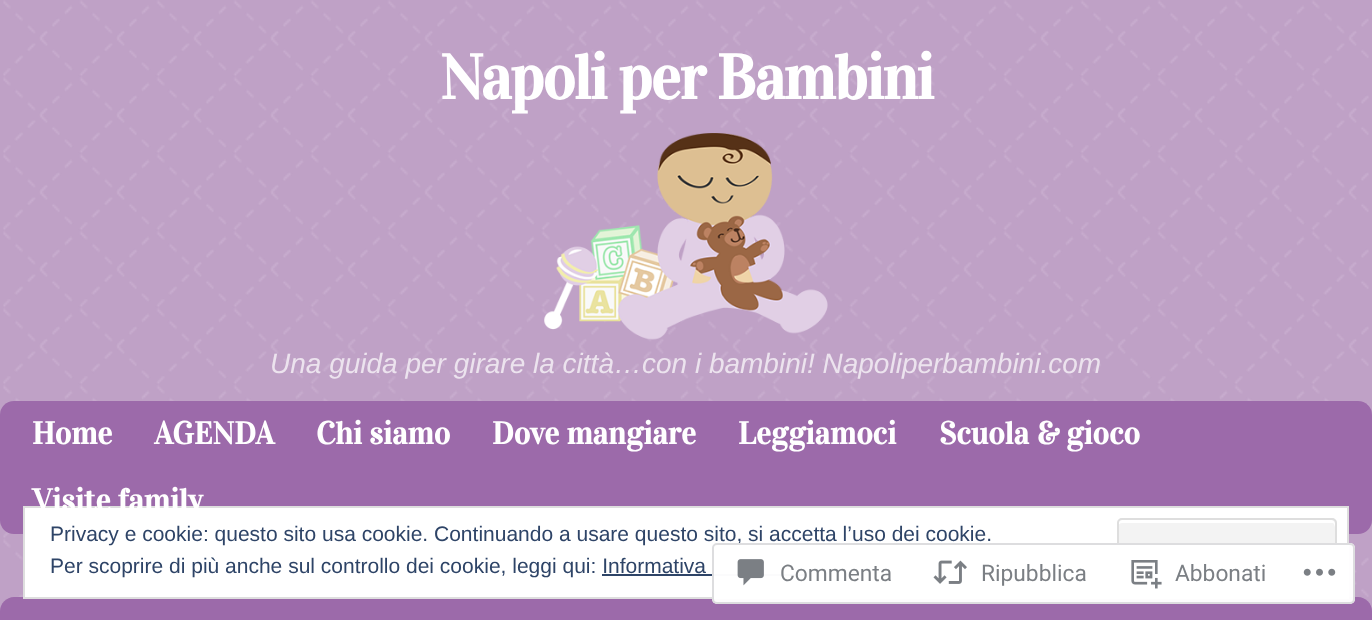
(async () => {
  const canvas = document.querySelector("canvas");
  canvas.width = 1372;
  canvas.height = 620;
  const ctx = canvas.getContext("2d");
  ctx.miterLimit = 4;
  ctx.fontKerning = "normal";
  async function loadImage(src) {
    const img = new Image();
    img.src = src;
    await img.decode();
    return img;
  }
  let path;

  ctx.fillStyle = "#bfa1c6";
  ctx.fillRect(0, 0, 1372, 620);
  ctx.drawImage(await loadImage("img/1.png"), 3, 0, 1366, 598);
  ctx.drawImage(await loadImage("img/2.png"), 544, 133, 284, 207);
  ctx.fillStyle = "#9c6aaa";
  ctx.beginPath();
  ctx.roundRect(0, 401, 1372, 133, 14);
  ctx.fill();
  path = new Path2D("M14 597H1358C1365.5 597 1372 603.5 1372 611V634H0V611C0 603.5 6.5 597 14 597Z");
  ctx.fill(path);
  ctx.fillStyle = "#ffffff";
  ctx.beginPath();
  ctx.rect(24, 507, 1324, 91);
  ctx.fill();
  ctx.strokeStyle = "#dedede";
  ctx.lineWidth = 2;
  ctx.stroke();
  ctx.fillStyle = "#f3f3f3";
  ctx.beginPath();
  ctx.roundRect(1117, 518, 220, 68, 5);
  ctx.fill();
  ctx.fillStyle = "#ffffff";
  path = new Path2D("M1122 523H1333L1334 524L1335 527V524C1335 522 1333 520 1331 520H1122C1120 520 1118 522 1118 524V527C1118 525 1120 523 1122 523Z");
  ctx.fill(path);
  ctx.beginPath();
  ctx.roundRect(1118, 519, 218, 66, 4);
  ctx.stroke();
  ctx.fillStyle = "#2e4467";
  ctx.fillRect(602, 574, 203, 2);
  ctx.letterSpacing = "-1.75px";
  ctx.font = "bold 63px Vidaloka";
  ctx.fillStyle = "#ffffff";
  ctx.fillText("Napoli per Bambini", 440, 99);
  ctx.letterSpacing = "0px";
  ctx.font = "italic 28px Liberation Sans";
  ctx.fillStyle = "#ece3ee";
  ctx.fillText("Una guida per girare la città…con i bambini! Napoliperbambini.com", 270, 373);
  ctx.font = "bold 31.5px Vidaloka";
  ctx.fillStyle = "#ffffff";
  for (const [text, x, y] of [
    ["Home", 32, 444],
    ["AGENDA", 154, 444],
    ["Chi siamo", 316, 444],
    ["Dove mangiare", 492, 444],
    ["Leggiamoci", 738, 444],
    ["Scuola & gioco", 939, 444],
    ["Visite family", 32, 511],
  ]) {
    ctx.fillText(text, x, y);
  }
  ctx.font = "21px Liberation Sans";
  ctx.fillStyle = "#2e4467";
  ctx.fillText("Privacy e cookie: questo sito usa cookie. Continuando a usare questo sito, si accetta l’uso dei cookie.", 50, 541);
  ctx.fillText("Per scoprire di più anche sul controllo dei cookie, leggi qui: Informativa", 50, 573);
  ctx.fillStyle = "rgba(255, 255, 255, 0.98)";
  ctx.beginPath();
  ctx.roundRect(712, 543, 643, 61, 5);
  ctx.fill();
  ctx.beginPath();
  ctx.roundRect(713, 544, 641, 59, 4);
  ctx.strokeStyle = "rgba(220, 220, 222, 0.98)";
  ctx.stroke();
  ctx.drawImage(await loadImage("img/3.png"), 737, 559, 27, 27);
  ctx.font = "22.75px Roboto";
  ctx.fillStyle = "#7b7f84";
  ctx.fillText("Commenta", 780, 581);
  ctx.drawImage(await loadImage("img/4.png"), 933, 560, 34, 24);
  ctx.fillText("Ripubblica", 981, 581);
  ctx.drawImage(await loadImage("img/5.png"), 1131, 560, 31, 29);
  ctx.fillText("Abbonati", 1175, 581);
  ctx.drawImage(await loadImage("img/6.png"), 1303, 568, 33, 8);
})();
